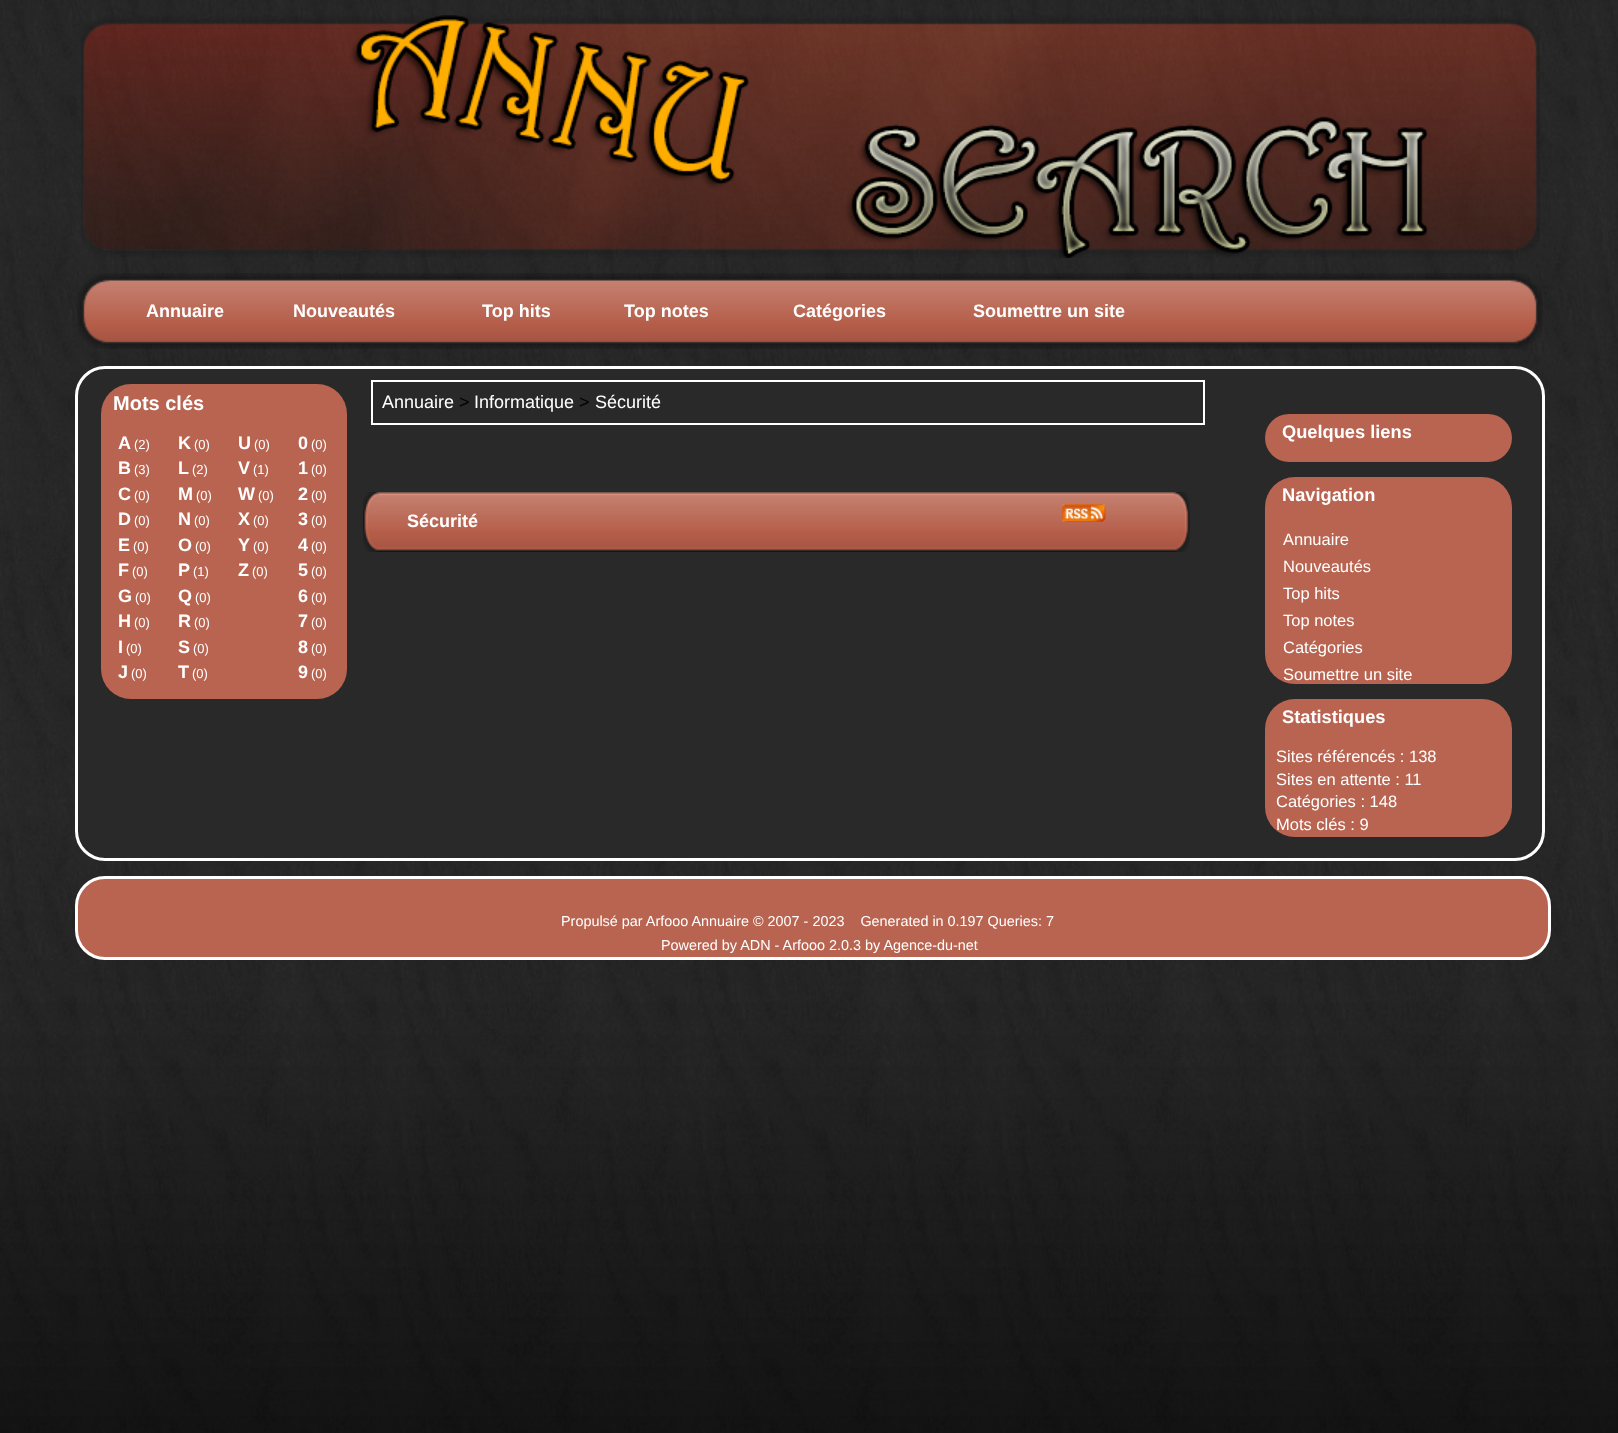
(async () => {
  const canvas = document.querySelector("canvas");
  canvas.width = 1618;
  canvas.height = 1433;
  const ctx = canvas.getContext("2d");
  ctx.miterLimit = 4;
  ctx.fontKerning = "normal";
  async function loadImage(src) {
    const img = new Image();
    img.src = src;
    await img.decode();
    return img;
  }

  ctx.fillStyle = "#ffffff";
  ctx.fillRect(0, 0, 1618, 1433);
  ctx.drawImage(await loadImage("img/1.png"), 0, 0, 1618, 1433);
  ctx.drawImage(await loadImage("img/2.png"), 81, 15, 1459, 243);
  ctx.drawImage(await loadImage("img/3.png"), 77, 273, 1466, 76);
  ctx.fillStyle = "#292929";
  ctx.beginPath();
  ctx.roundRect(76.5, 367.5, 1467, 492, 28.5);
  ctx.fill();
  ctx.strokeStyle = "#ffffff";
  ctx.lineWidth = 3;
  ctx.stroke();
  ctx.fillStyle = "#b86450";
  ctx.beginPath();
  ctx.roundRect(101, 384, 246, 45, [30, 30, 0, 0]);
  ctx.fill();
  ctx.beginPath();
  ctx.roundRect(101, 429, 246, 270, [0, 0, 30, 30]);
  ctx.fill();
  ctx.lineWidth = 2;
  ctx.strokeRect(372, 381, 832, 43);
  ctx.drawImage(await loadImage("img/4.png"), 363, 492, 827, 60);
  ctx.drawImage(await loadImage("img/5.png"), 1062, 504, 44, 18);
  ctx.beginPath();
  ctx.roundRect(1265, 414, 247, 48, 24);
  ctx.fill();
  ctx.beginPath();
  ctx.roundRect(1265, 477, 247, 207, 30);
  ctx.fill();
  ctx.beginPath();
  ctx.roundRect(1265, 699, 247, 138, 30);
  ctx.fill();
  ctx.beginPath();
  ctx.roundRect(76.5, 877.5, 1473, 81, 28.5);
  ctx.fill();
  ctx.lineWidth = 3;
  ctx.stroke();
  ctx.font = "bold 18px Liberation Sans";
  ctx.fillStyle = "#ffffff";
  for (const [text, x, y] of [
    ["Annuaire", 146, 317],
    ["Nouveautés", 293, 317],
    ["Top hits", 482, 317],
    ["Top notes", 624, 317],
    ["Catégories", 793, 317],
    ["Soumettre un site", 973, 317],
  ]) {
    ctx.fillText(text, x, y);
  }
  ctx.font = "bold 20px Liberation Sans";
  ctx.fillText("Mots clés", 113, 410);
  ctx.font = "bold 18px Liberation Sans";
  ctx.fillText("A", 118, 449);
  ctx.font = "13px Liberation Sans";
  ctx.fillText("(2)", 134, 449);
  ctx.font = "bold 18px Liberation Sans";
  ctx.fillText("B", 118, 474);
  ctx.font = "13px Liberation Sans";
  ctx.fillText("(3)", 134, 474);
  ctx.font = "bold 18px Liberation Sans";
  ctx.fillText("C", 118, 500);
  ctx.font = "13px Liberation Sans";
  ctx.fillText("(0)", 134, 500);
  ctx.font = "bold 18px Liberation Sans";
  ctx.fillText("D", 118, 525);
  ctx.font = "13px Liberation Sans";
  ctx.fillText("(0)", 134, 525);
  ctx.font = "bold 18px Liberation Sans";
  ctx.fillText("E", 118, 551);
  ctx.font = "13px Liberation Sans";
  ctx.fillText("(0)", 133, 551);
  ctx.font = "bold 18px Liberation Sans";
  ctx.fillText("F", 118, 576);
  ctx.font = "13px Liberation Sans";
  ctx.fillText("(0)", 132, 576);
  ctx.font = "bold 18px Liberation Sans";
  ctx.fillText("G", 118, 602);
  ctx.font = "13px Liberation Sans";
  ctx.fillText("(0)", 135, 602);
  ctx.font = "bold 18px Liberation Sans";
  ctx.fillText("H", 118, 627);
  ctx.font = "13px Liberation Sans";
  ctx.fillText("(0)", 134, 627);
  ctx.font = "bold 18px Liberation Sans";
  ctx.fillText("I", 118, 653);
  ctx.font = "13px Liberation Sans";
  ctx.fillText("(0)", 126, 653);
  ctx.font = "bold 18px Liberation Sans";
  ctx.fillText("J", 118, 678);
  ctx.font = "13px Liberation Sans";
  ctx.fillText("(0)", 131, 678);
  ctx.font = "bold 18px Liberation Sans";
  ctx.fillText("K", 178, 449);
  ctx.font = "13px Liberation Sans";
  ctx.fillText("(0)", 194, 449);
  ctx.font = "bold 18px Liberation Sans";
  ctx.fillText("L", 178, 474);
  ctx.font = "13px Liberation Sans";
  ctx.fillText("(2)", 192, 474);
  ctx.font = "bold 18px Liberation Sans";
  ctx.fillText("M", 178, 500);
  ctx.font = "13px Liberation Sans";
  ctx.fillText("(0)", 196, 500);
  ctx.font = "bold 18px Liberation Sans";
  ctx.fillText("N", 178, 525);
  ctx.font = "13px Liberation Sans";
  ctx.fillText("(0)", 194, 525);
  ctx.font = "bold 18px Liberation Sans";
  ctx.fillText("O", 178, 551);
  ctx.font = "13px Liberation Sans";
  ctx.fillText("(0)", 195, 551);
  ctx.font = "bold 18px Liberation Sans";
  ctx.fillText("P", 178, 576);
  ctx.font = "13px Liberation Sans";
  ctx.fillText("(1)", 193, 576);
  ctx.font = "bold 18px Liberation Sans";
  ctx.fillText("Q", 178, 602);
  ctx.font = "13px Liberation Sans";
  ctx.fillText("(0)", 195, 602);
  ctx.font = "bold 18px Liberation Sans";
  ctx.fillText("R", 178, 627);
  ctx.font = "13px Liberation Sans";
  ctx.fillText("(0)", 194, 627);
  ctx.font = "bold 18px Liberation Sans";
  ctx.fillText("S", 178, 653);
  ctx.font = "13px Liberation Sans";
  ctx.fillText("(0)", 193, 653);
  ctx.font = "bold 18px Liberation Sans";
  ctx.fillText("T", 178, 678);
  ctx.font = "13px Liberation Sans";
  ctx.fillText("(0)", 192, 678);
  ctx.font = "bold 18px Liberation Sans";
  ctx.fillText("U", 238, 449);
  ctx.font = "13px Liberation Sans";
  ctx.fillText("(0)", 254, 449);
  ctx.font = "bold 18px Liberation Sans";
  ctx.fillText("V", 238, 474);
  ctx.font = "13px Liberation Sans";
  ctx.fillText("(1)", 253, 474);
  ctx.font = "bold 18px Liberation Sans";
  ctx.fillText("W", 238, 500);
  ctx.font = "13px Liberation Sans";
  ctx.fillText("(0)", 258, 500);
  ctx.font = "bold 18px Liberation Sans";
  ctx.fillText("X", 238, 525);
  ctx.font = "13px Liberation Sans";
  ctx.fillText("(0)", 253, 525);
  ctx.font = "bold 18px Liberation Sans";
  ctx.fillText("Y", 238, 551);
  ctx.font = "13px Liberation Sans";
  ctx.fillText("(0)", 253, 551);
  ctx.font = "bold 18px Liberation Sans";
  ctx.fillText("Z", 238, 576);
  ctx.font = "13px Liberation Sans";
  ctx.fillText("(0)", 252, 576);
  ctx.font = "bold 18px Liberation Sans";
  ctx.fillText("0", 298, 449);
  ctx.font = "13px Liberation Sans";
  ctx.fillText("(0)", 311, 449);
  ctx.font = "bold 18px Liberation Sans";
  ctx.fillText("1", 298, 474);
  ctx.font = "13px Liberation Sans";
  ctx.fillText("(0)", 311, 474);
  ctx.font = "bold 18px Liberation Sans";
  ctx.fillText("2", 298, 500);
  ctx.font = "13px Liberation Sans";
  ctx.fillText("(0)", 311, 500);
  ctx.font = "bold 18px Liberation Sans";
  ctx.fillText("3", 298, 525);
  ctx.font = "13px Liberation Sans";
  ctx.fillText("(0)", 311, 525);
  ctx.font = "bold 18px Liberation Sans";
  ctx.fillText("4", 298, 551);
  ctx.font = "13px Liberation Sans";
  ctx.fillText("(0)", 311, 551);
  ctx.font = "bold 18px Liberation Sans";
  ctx.fillText("5", 298, 576);
  ctx.font = "13px Liberation Sans";
  ctx.fillText("(0)", 311, 576);
  ctx.font = "bold 18px Liberation Sans";
  ctx.fillText("6", 298, 602);
  ctx.font = "13px Liberation Sans";
  ctx.fillText("(0)", 311, 602);
  ctx.font = "bold 18px Liberation Sans";
  ctx.fillText("7", 298, 627);
  ctx.font = "13px Liberation Sans";
  ctx.fillText("(0)", 311, 627);
  ctx.font = "bold 18px Liberation Sans";
  ctx.fillText("8", 298, 653);
  ctx.font = "13px Liberation Sans";
  ctx.fillText("(0)", 311, 653);
  ctx.font = "bold 18px Liberation Sans";
  ctx.fillText("9", 298, 678);
  ctx.font = "13px Liberation Sans";
  ctx.fillText("(0)", 311, 678);
  ctx.font = "18px Liberation Sans";
  ctx.fillText("Annuaire", 382, 408);
  ctx.fillStyle = "#000000";
  ctx.fillText(">", 459, 408);
  ctx.fillStyle = "#ffffff";
  ctx.fillText("Informatique", 474, 408);
  ctx.fillStyle = "#000000";
  ctx.fillText(">", 579, 408);
  ctx.fillStyle = "#ffffff";
  ctx.fillText("Sécurité", 595, 408);
  ctx.font = "bold 18px Liberation Sans";
  ctx.fillText("Sécurité", 407, 527);
  ctx.font = "bold 18.25px Liberation Sans";
  ctx.fillText("Quelques liens", 1282, 438);
  ctx.fillText("Navigation", 1282, 501);
  ctx.font = "16.5px Liberation Sans";
  for (const [text, x, y] of [
    ["Annuaire", 1283, 545],
    ["Nouveautés", 1283, 572],
    ["Top hits", 1283, 599],
    ["Top notes", 1283, 626],
    ["Catégories", 1283, 653],
    ["Soumettre un site", 1283, 680],
  ]) {
    ctx.fillText(text, x, y);
  }
  ctx.font = "bold 18.25px Liberation Sans";
  ctx.fillText("Statistiques", 1282, 723);
  ctx.font = "16.5px Liberation Sans";
  for (const [text, x, y] of [
    ["Sites référencés : 138", 1276, 762],
    ["Sites en attente : 11", 1276, 785],
    ["Catégories : 148", 1276, 807],
    ["Mots clés : 9", 1276, 830],
  ]) {
    ctx.fillText(text, x, y);
  }
  ctx.font = "14.4px Liberation Sans";
  ctx.fillText("Propulsé par Arfooo Annuaire © 2007 - 2023    Generated in 0.197 Queries: 7", 561, 926);
  ctx.fillText("Powered by ADN - Arfooo 2.0.3 by Agence-du-net", 661, 950);
})();
